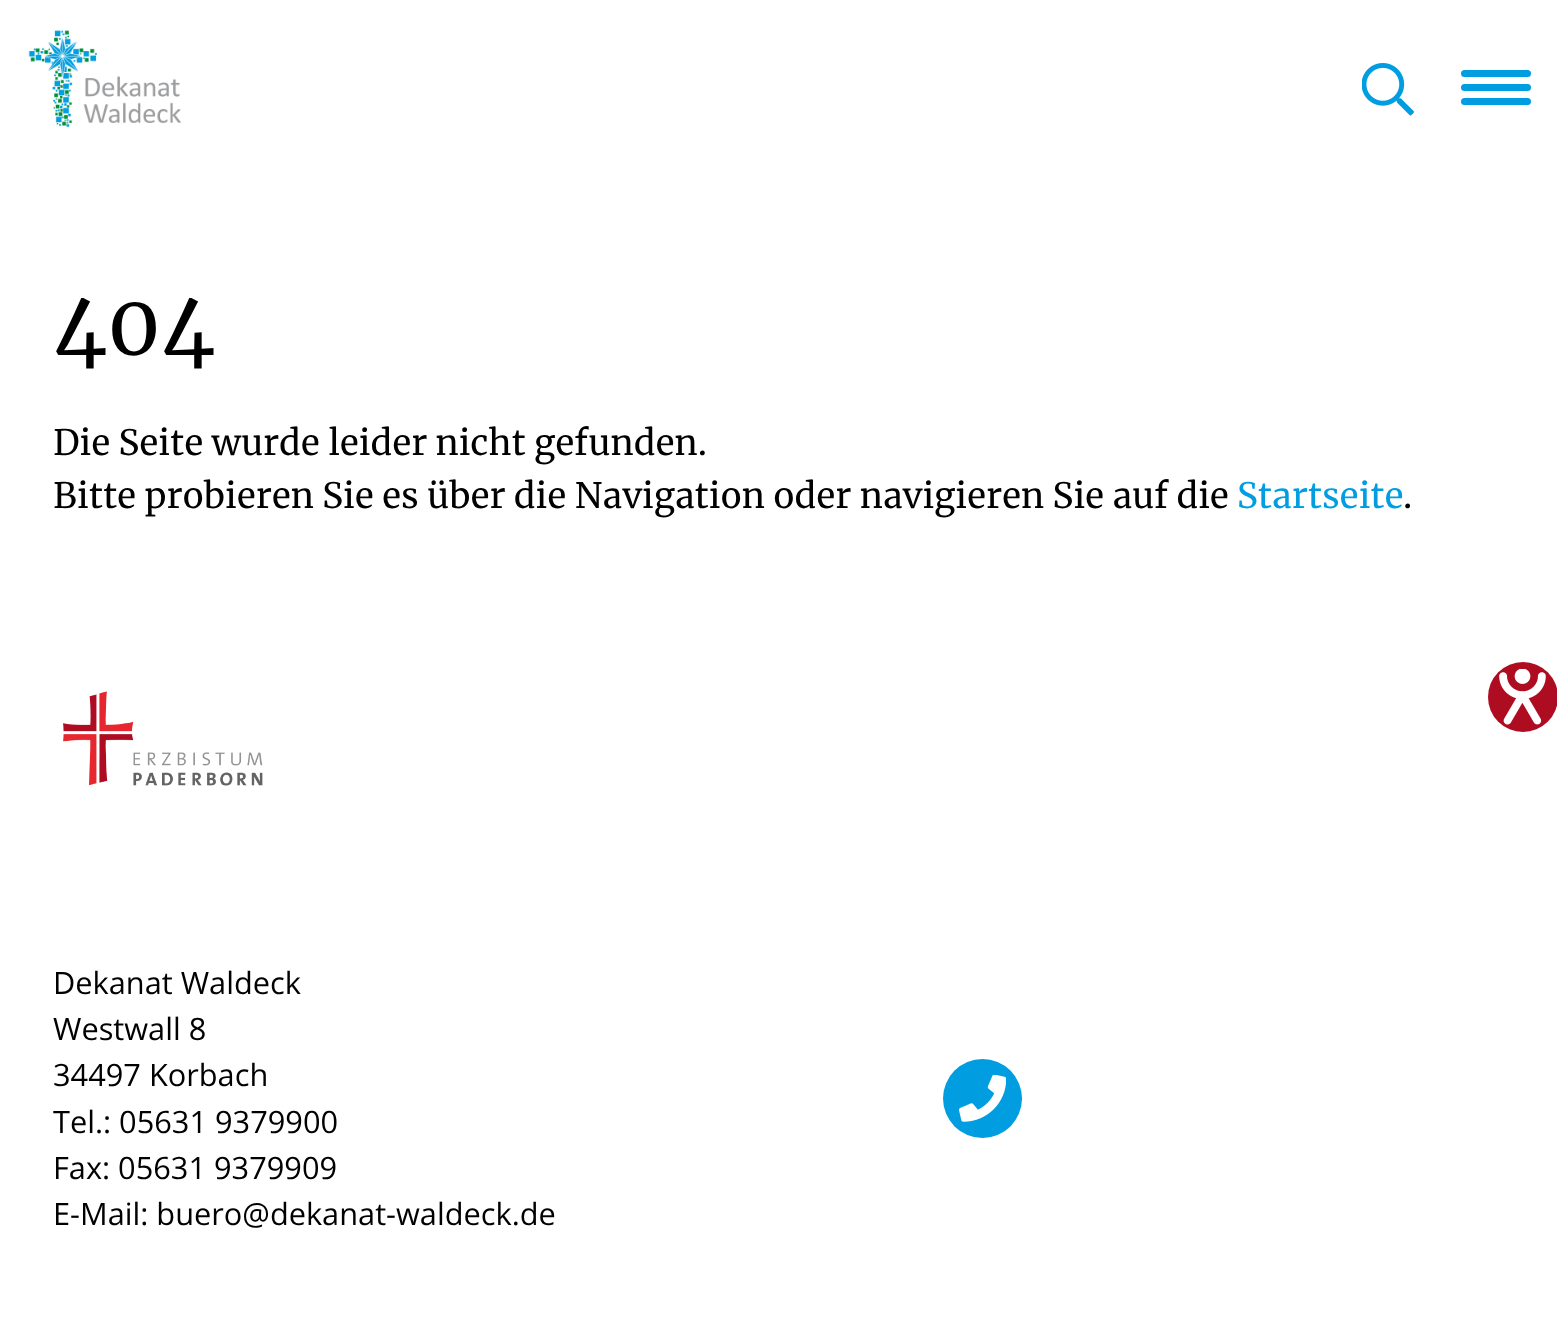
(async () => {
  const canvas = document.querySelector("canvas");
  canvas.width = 1557;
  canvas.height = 1323;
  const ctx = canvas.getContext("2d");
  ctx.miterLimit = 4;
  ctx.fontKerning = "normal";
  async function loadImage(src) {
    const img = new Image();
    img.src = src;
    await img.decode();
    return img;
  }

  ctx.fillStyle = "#ffffff";
  ctx.fillRect(0, 0, 1557, 1323);
  ctx.drawImage(await loadImage("img/1.png"), 28, 30, 154, 98);
  ctx.drawImage(await loadImage("img/2.png"), 1362, 63, 52, 53);
  ctx.fillStyle = "#009ee1";
  ctx.beginPath();
  ctx.roundRect(1461, 70, 70, 7, 3.5);
  ctx.fill();
  ctx.beginPath();
  ctx.roundRect(1461, 84, 70, 7, 3.5);
  ctx.fill();
  ctx.beginPath();
  ctx.roundRect(1461, 98, 70, 7, 3.5);
  ctx.fill();
  ctx.fillStyle = "#ae0c21";
  ctx.beginPath();
  ctx.arc(1523, 697, 35, 0, Math.PI * 2);
  ctx.fill();
  ctx.drawImage(await loadImage("img/3.png"), 1499, 669, 47, 56);
  ctx.drawImage(await loadImage("img/4.png"), 63, 691, 200, 95);
  ctx.fillStyle = "#009ee1";
  ctx.beginPath();
  ctx.arc(982.5, 1098.5, 39.5, 0, Math.PI * 2);
  ctx.fill();
  ctx.drawImage(await loadImage("img/5.png"), 959, 1075, 47, 47);
  ctx.font = "84px Merriweather";
  ctx.fillStyle = "#000000";
  ctx.fillText("404", 53, 355);
  ctx.font = "35px Merriweather";
  ctx.fillText("Die Seite wurde leider nicht gefunden.", 53, 455);
  ctx.fillText("Bitte probieren Sie es über die Navigation oder navigieren Sie auf die", 53, 508);
  ctx.fillStyle = "#009ee1";
  ctx.fillText("Startseite", 1237, 508);
  ctx.fillStyle = "#000000";
  ctx.fillText(".", 1403, 508);
  ctx.font = "30.75px Open Sans";
  for (const [text, x, y] of [
    ["Dekanat Waldeck", 53, 994],
    ["Westwall 8", 53, 1040],
    ["34497 Korbach", 53, 1086],
    ["Tel.: 05631 9379900", 53, 1133],
    ["Fax: 05631 9379909", 53, 1179],
    ["E-Mail: buero@dekanat-waldeck.de", 53, 1225],
  ]) {
    ctx.fillText(text, x, y);
  }
})();
